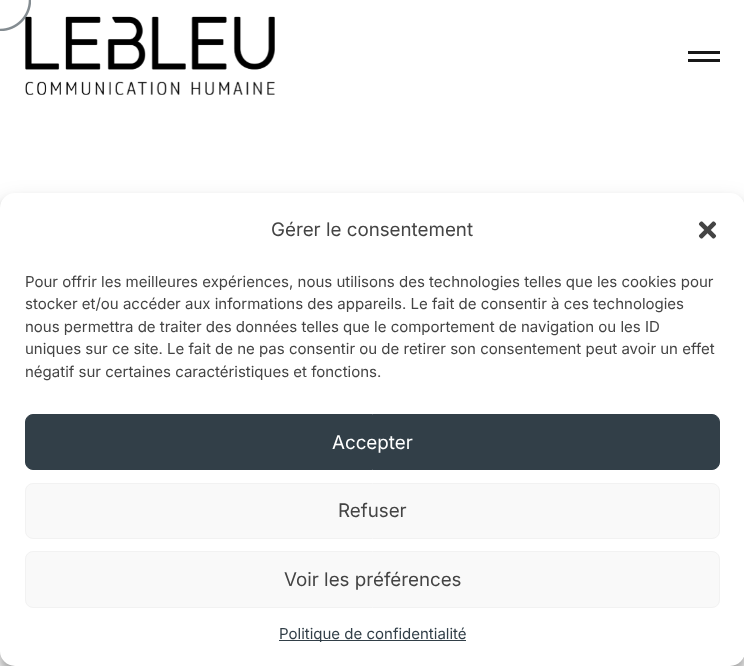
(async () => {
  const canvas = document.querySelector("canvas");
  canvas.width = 744;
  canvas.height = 666;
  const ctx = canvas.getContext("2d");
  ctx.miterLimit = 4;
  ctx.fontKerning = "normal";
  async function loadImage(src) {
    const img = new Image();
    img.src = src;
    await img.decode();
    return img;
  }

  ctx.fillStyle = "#ffffff";
  ctx.fillRect(0, 0, 744, 666);
  ctx.drawImage(await loadImage("img/2.png"), 25, 16, 250, 79);
  ctx.drawImage(await loadImage("img/1.png"), 0, 0, 31, 31);
  ctx.fillStyle = "#181818";
  ctx.fillRect(688, 51, 32, 3);
  ctx.fillRect(688, 59, 32, 3);
  ctx.fillStyle = "rgba(0, 0, 0, 0.23)";
  ctx.filter = "blur(4px)";
  ctx.beginPath();
  ctx.roundRect(0, 200, 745, 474, 15);
  ctx.fill();
  ctx.filter = "none";
  ctx.fillStyle = "rgba(0, 0, 0, 0.19)";
  ctx.filter = "blur(12.5px)";
  ctx.beginPath();
  ctx.roundRect(0, 205, 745, 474, 15);
  ctx.fill();
  ctx.filter = "none";
  ctx.fillStyle = "#ffffff";
  ctx.beginPath();
  ctx.roundRect(0, 193, 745, 473, 15);
  ctx.fill();
  ctx.drawImage(await loadImage("img/3.png"), 698, 221, 19, 18);
  ctx.fillStyle = "#323f48";
  ctx.beginPath();
  ctx.roundRect(25.5, 414.5, 694, 55, 7.5);
  ctx.fill();
  ctx.strokeStyle = "#323f48";
  ctx.stroke();
  ctx.fillStyle = "#f9f9f9";
  ctx.beginPath();
  ctx.roundRect(25.5, 483.5, 694, 55, 7.5);
  ctx.fill();
  ctx.strokeStyle = "#f2f2f2";
  ctx.stroke();
  ctx.beginPath();
  ctx.roundRect(25.5, 551.5, 694, 56, 7.5);
  ctx.fill();
  ctx.stroke();
  ctx.fillStyle = "#323f48";
  ctx.fillRect(279, 640, 187, 1);
  ctx.font = "18.75px Inter";
  ctx.fillStyle = "#444444";
  ctx.fillText("Gérer le consentement", 271, 236);
  ctx.font = "15px Inter";
  for (const [text, x, y] of [
    ["Pour offrir les meilleures expériences, nous utilisons des technologies telles que les cookies pour", 25, 287],
    ["stocker et/ou accéder aux informations des appareils. Le fait de consentir à ces technologies", 25, 309],
    ["nous permettra de traiter des données telles que le comportement de navigation ou les ID", 25, 332],
    ["uniques sur ce site. Le fait de ne pas consentir ou de retirer son consentement peut avoir un effet", 25, 354],
    ["négatif sur certaines caractéristiques et fonctions.", 25, 377],
  ]) {
    ctx.fillText(text, x, y);
  }
  ctx.font = "18.75px Inter";
  ctx.fillStyle = "#ffffff";
  ctx.fillText("Accepter", 332, 449);
  ctx.fillStyle = "#444444";
  ctx.fillText("Refuser", 338, 517);
  ctx.fillText("Voir les préférences", 284, 586);
  ctx.font = "15px Inter";
  ctx.fillStyle = "#323f48";
  ctx.fillText("Politique de confidentialité", 279, 639);
})();
